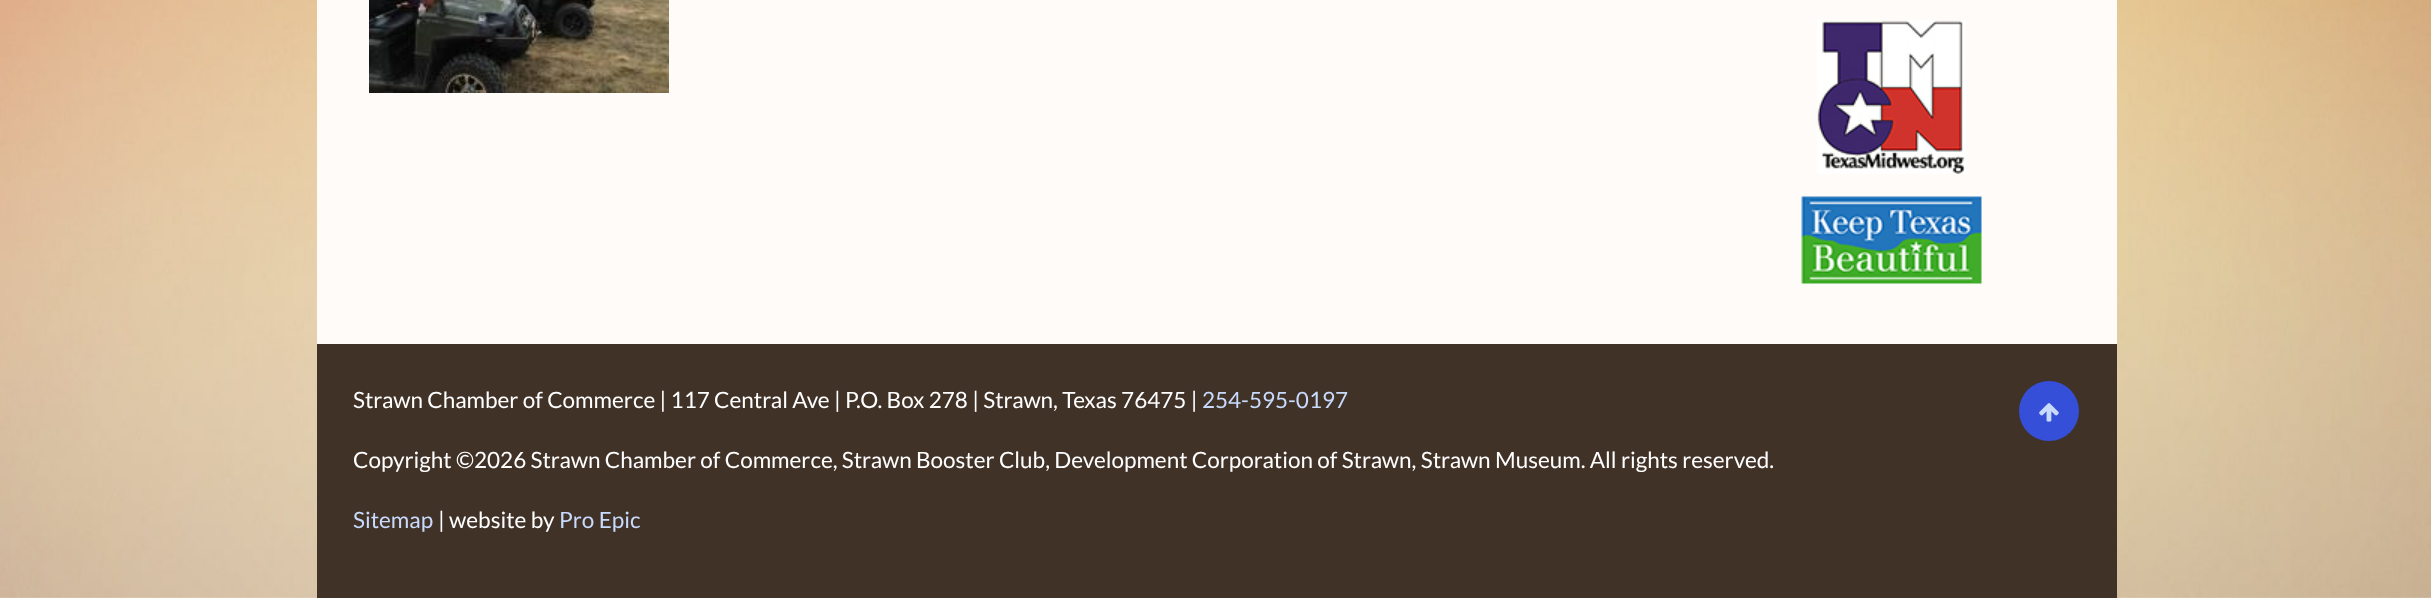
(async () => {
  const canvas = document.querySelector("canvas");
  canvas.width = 2431;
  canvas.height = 598;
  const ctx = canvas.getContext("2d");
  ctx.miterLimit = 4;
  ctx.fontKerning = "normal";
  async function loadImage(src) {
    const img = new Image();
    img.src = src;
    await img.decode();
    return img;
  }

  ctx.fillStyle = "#ffffff";
  ctx.fillRect(0, 0, 2431, 598);
  ctx.drawImage(await loadImage("img/1.png"), 0, 0, 2431, 598);
  ctx.fillStyle = "#fefbf9";
  ctx.fillRect(317, 0, 1800, 344);
  ctx.drawImage(await loadImage("img/2.png"), 369, 0, 300, 93);
  ctx.drawImage(await loadImage("img/3.png"), 1817, 20, 149, 154);
  ctx.drawImage(await loadImage("img/4.png"), 1801, 196, 181, 88);
  ctx.fillStyle = "#413228";
  ctx.fillRect(317, 344, 1800, 254);
  ctx.fillStyle = "#364fd9";
  ctx.beginPath();
  ctx.arc(2049, 411, 30, 0, Math.PI * 2);
  ctx.fill();
  ctx.drawImage(await loadImage("img/5.png"), 2039, 403, 20, 19);
  ctx.font = "22.5px Lato";
  ctx.fillStyle = "#ffffff";
  ctx.fillText("Strawn Chamber of Commerce | 117 Central Ave | P.O. Box 278 | Strawn, Texas 76475 |", 353, 408);
  ctx.fillStyle = "#c8dbfd";
  ctx.fillText("254-595-0197", 1202, 408);
  ctx.fillStyle = "#ffffff";
  ctx.fillText("Copyright ©2026 Strawn Chamber of Commerce, Strawn Booster Club, Development Corporation of Strawn, Strawn Museum. All rights reserved.", 353, 468);
  ctx.fillStyle = "#c8dbfd";
  ctx.fillText("Sitemap", 353, 528);
  ctx.fillStyle = "#ffffff";
  ctx.fillText("| website by", 438, 528);
  ctx.fillStyle = "#c8dbfd";
  ctx.fillText("Pro Epic", 559, 528);
})();
